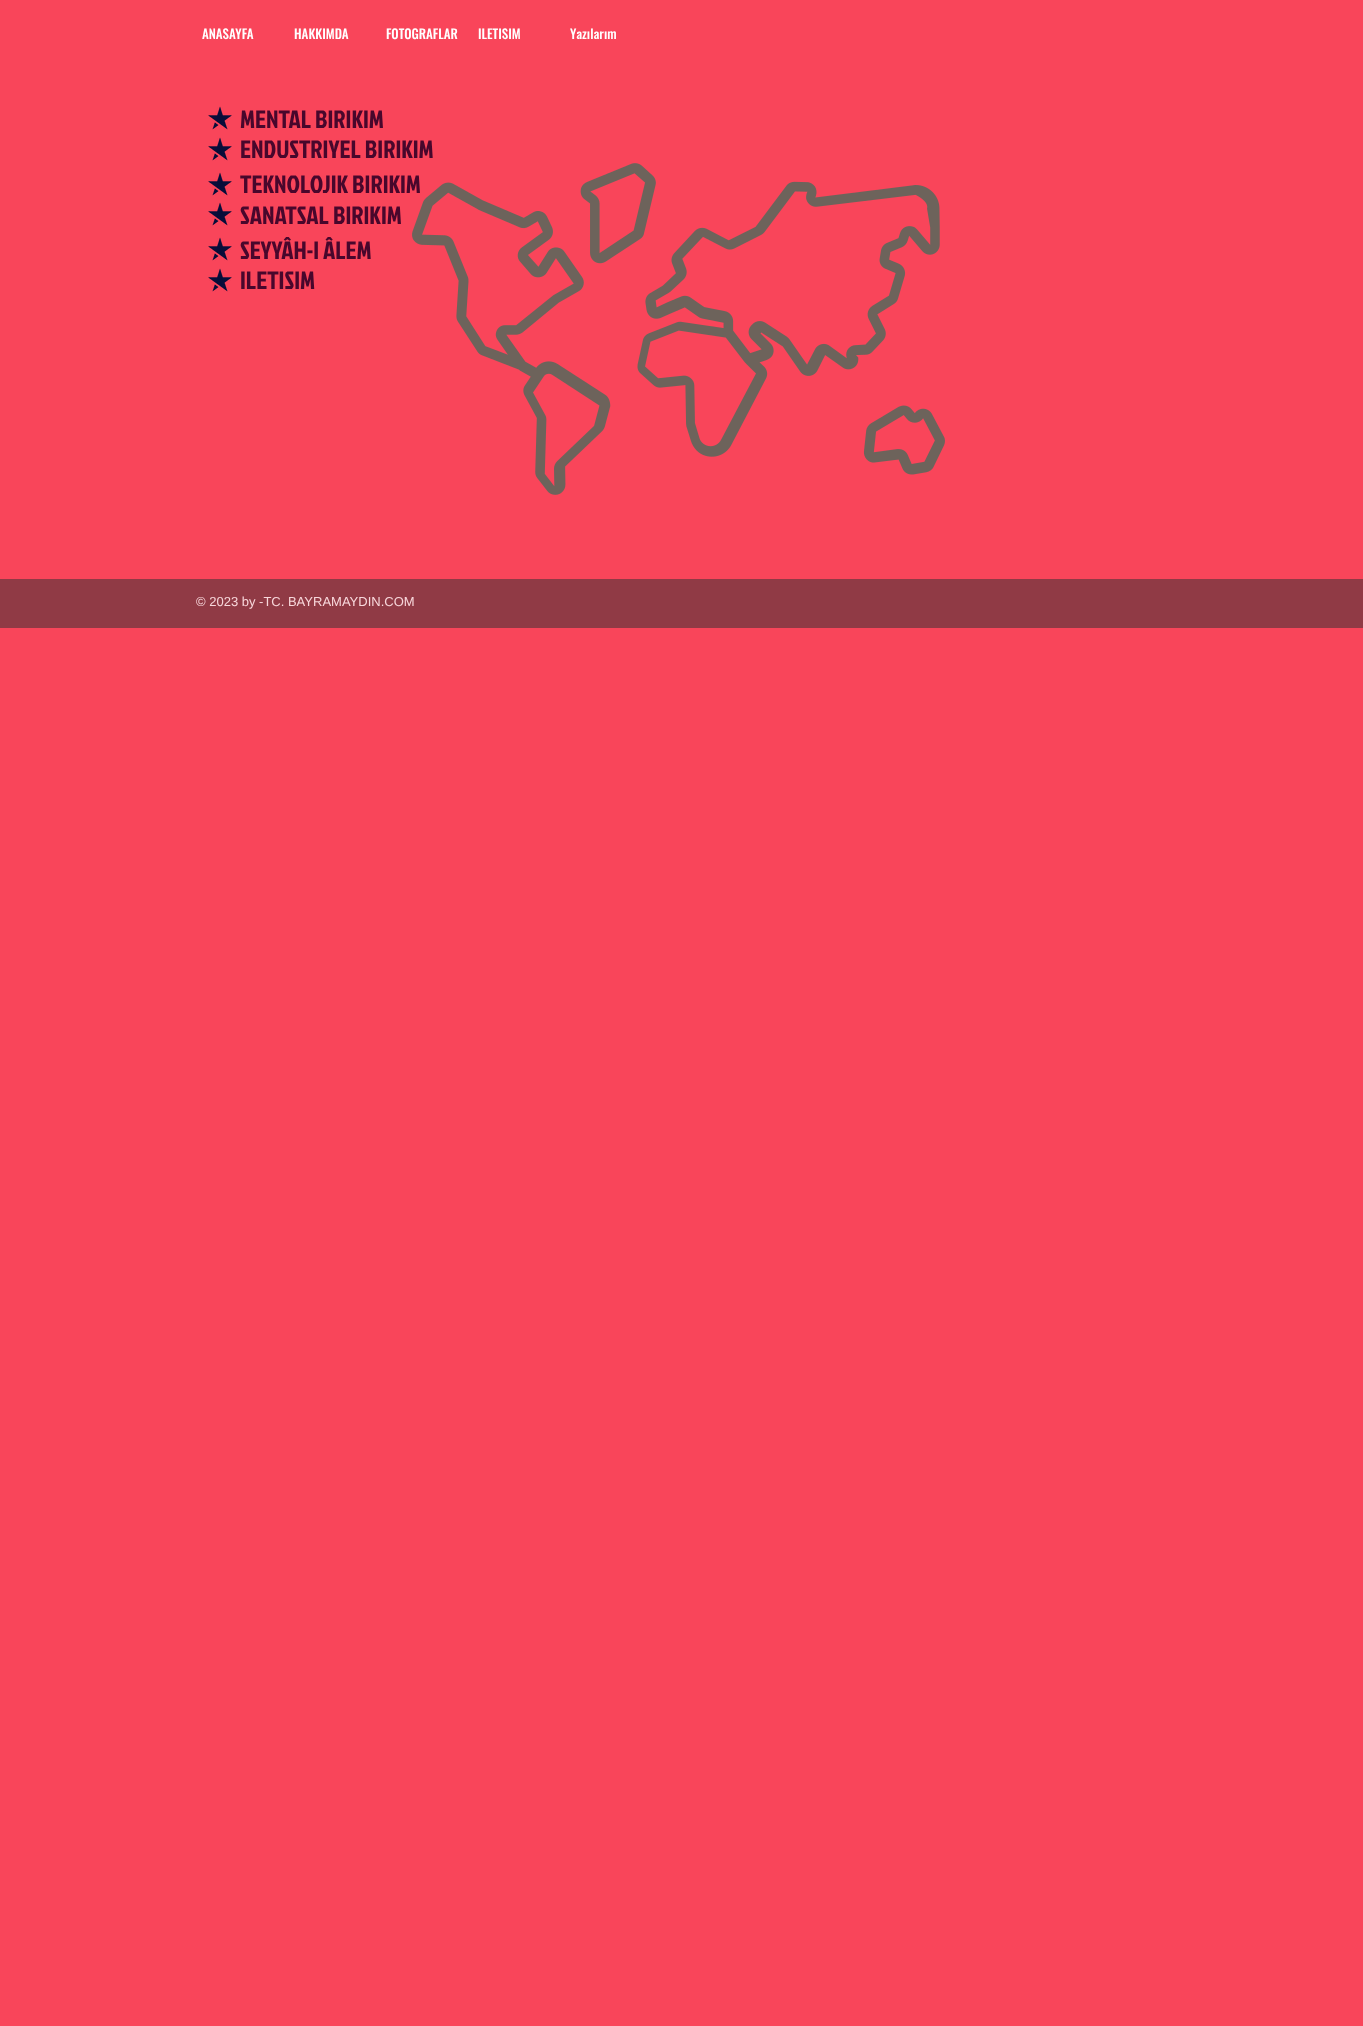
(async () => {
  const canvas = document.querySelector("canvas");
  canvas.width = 1363;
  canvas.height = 2026;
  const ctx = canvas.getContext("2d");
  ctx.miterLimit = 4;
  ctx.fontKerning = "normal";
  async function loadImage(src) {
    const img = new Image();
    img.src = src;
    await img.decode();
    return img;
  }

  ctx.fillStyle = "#f9455a";
  ctx.fillRect(0, 0, 1363, 2026);
  ctx.drawImage(await loadImage("img/1.png"), 208, 106, 24, 24);
  ctx.drawImage(await loadImage("img/1.png"), 208, 137, 24, 24);
  ctx.drawImage(await loadImage("img/1.png"), 208, 172, 24, 24);
  ctx.drawImage(await loadImage("img/2.png"), 412, 163, 533, 332);
  ctx.drawImage(await loadImage("img/1.png"), 208, 202, 24, 24);
  ctx.drawImage(await loadImage("img/1.png"), 208, 237, 24, 24);
  ctx.drawImage(await loadImage("img/1.png"), 208, 268, 24, 24);
  ctx.fillStyle = "#903a45";
  ctx.fillRect(0, 579, 1363, 49);
  ctx.font = "500 13px Oswald";
  ctx.fillStyle = "#ffffff";
  for (const [text, x, y] of [
    ["ANASAYFA", 202, 39],
    ["HAKKIMDA", 294, 39],
    ["FOTOGRAFLAR", 386, 39],
    ["ILETISIM", 478, 39],
    ["Yazılarım", 570, 39],
  ]) {
    ctx.fillText(text, x, y);
  }
  ctx.font = "25px Jockey One";
  ctx.fillStyle = "#48072c";
  for (const [text, x, y] of [
    ["MENTAL BIRIKIM", 240, 128],
    ["ENDUSTRIYEL BIRIKIM", 240, 158],
    ["TEKNOLOJIK BIRIKIM", 240, 193],
    ["SANATSAL BIRIKIM", 240, 224],
    ["SEYYÂH-I ÂLEM", 240, 259],
    ["ILETISIM", 240, 289],
  ]) {
    ctx.fillText(text, x, y);
  }
  ctx.font = "13px Liberation Sans";
  ctx.fillStyle = "#f8d7db";
  ctx.fillText("© 2023 by -TC. BAYRAMAYDIN.COM", 196, 606);
})();
